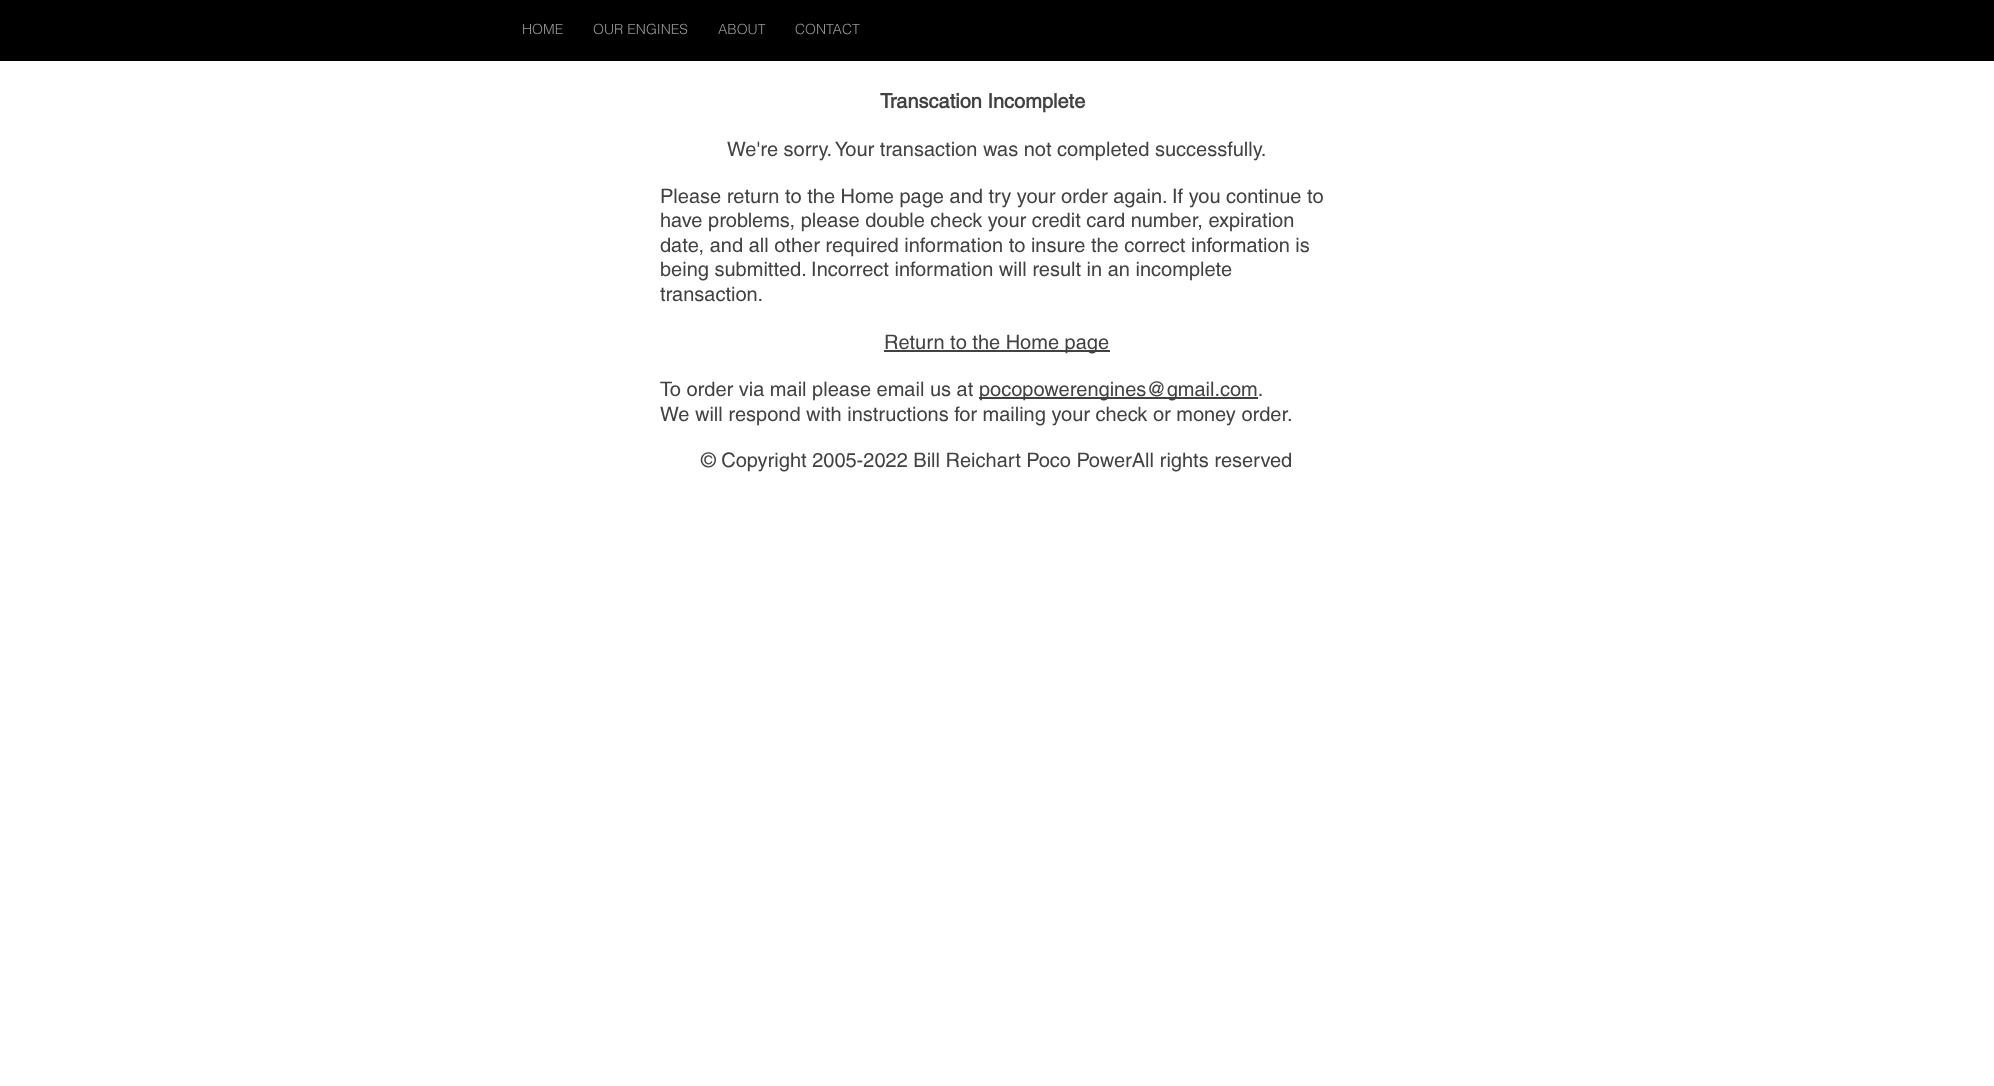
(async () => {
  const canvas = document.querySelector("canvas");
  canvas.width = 1994;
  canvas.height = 1086;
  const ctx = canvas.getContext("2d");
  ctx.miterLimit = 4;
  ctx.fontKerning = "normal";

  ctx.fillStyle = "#ffffff";
  ctx.fillRect(0, 0, 1994, 1086);
  for (const [x, y, w, h, color] of [
    [0, 0, 1994, 61, "#000000"],
    [884, 350, 226, 2, "#424242"],
    [979, 397, 279, 2, "#424242"],
  ]) {
    ctx.fillStyle = color;
    ctx.fillRect(x, y, w, h);
  }
  ctx.font = "300 14px helvetica";
  ctx.fillStyle = "#969696";
  for (const [text, x, y] of [
    ["HOME", 522, 34],
    ["OUR ENGINES", 593, 34],
    ["ABOUT", 718, 34],
    ["CONTACT", 795, 34],
  ]) {
    ctx.fillText(text, x, y);
  }
  ctx.font = "bold 20px helvetica";
  ctx.fillStyle = "#424242";
  ctx.fillText("Transcation Incomplete", 880, 108);
  ctx.font = "20px helvetica";
  for (const [text, x, y] of [
    ["We're sorry. Your transaction was not completed successfully.", 727, 156],
    ["Please return to the Home page and try your order again. If you continue to", 660, 203],
    ["have problems, please double check your credit card number, expiration", 660, 227],
    ["date, and all other required information to insure the correct information is", 660, 252],
    ["being submitted. Incorrect information will result in an incomplete", 660, 276],
    ["transaction.", 660, 301],
    ["Return to the Home page", 884, 349],
    ["To order via mail please email us at", 660, 396],
    ["pocopowerengines@gmail.com.", 979, 396],
    ["We will respond with instructions for mailing your check or money order.", 660, 421],
    ["© Copyright 2005-2022 Bill Reichart Poco PowerAll rights reserved", 701, 467],
  ]) {
    ctx.fillText(text, x, y);
  }
})();
